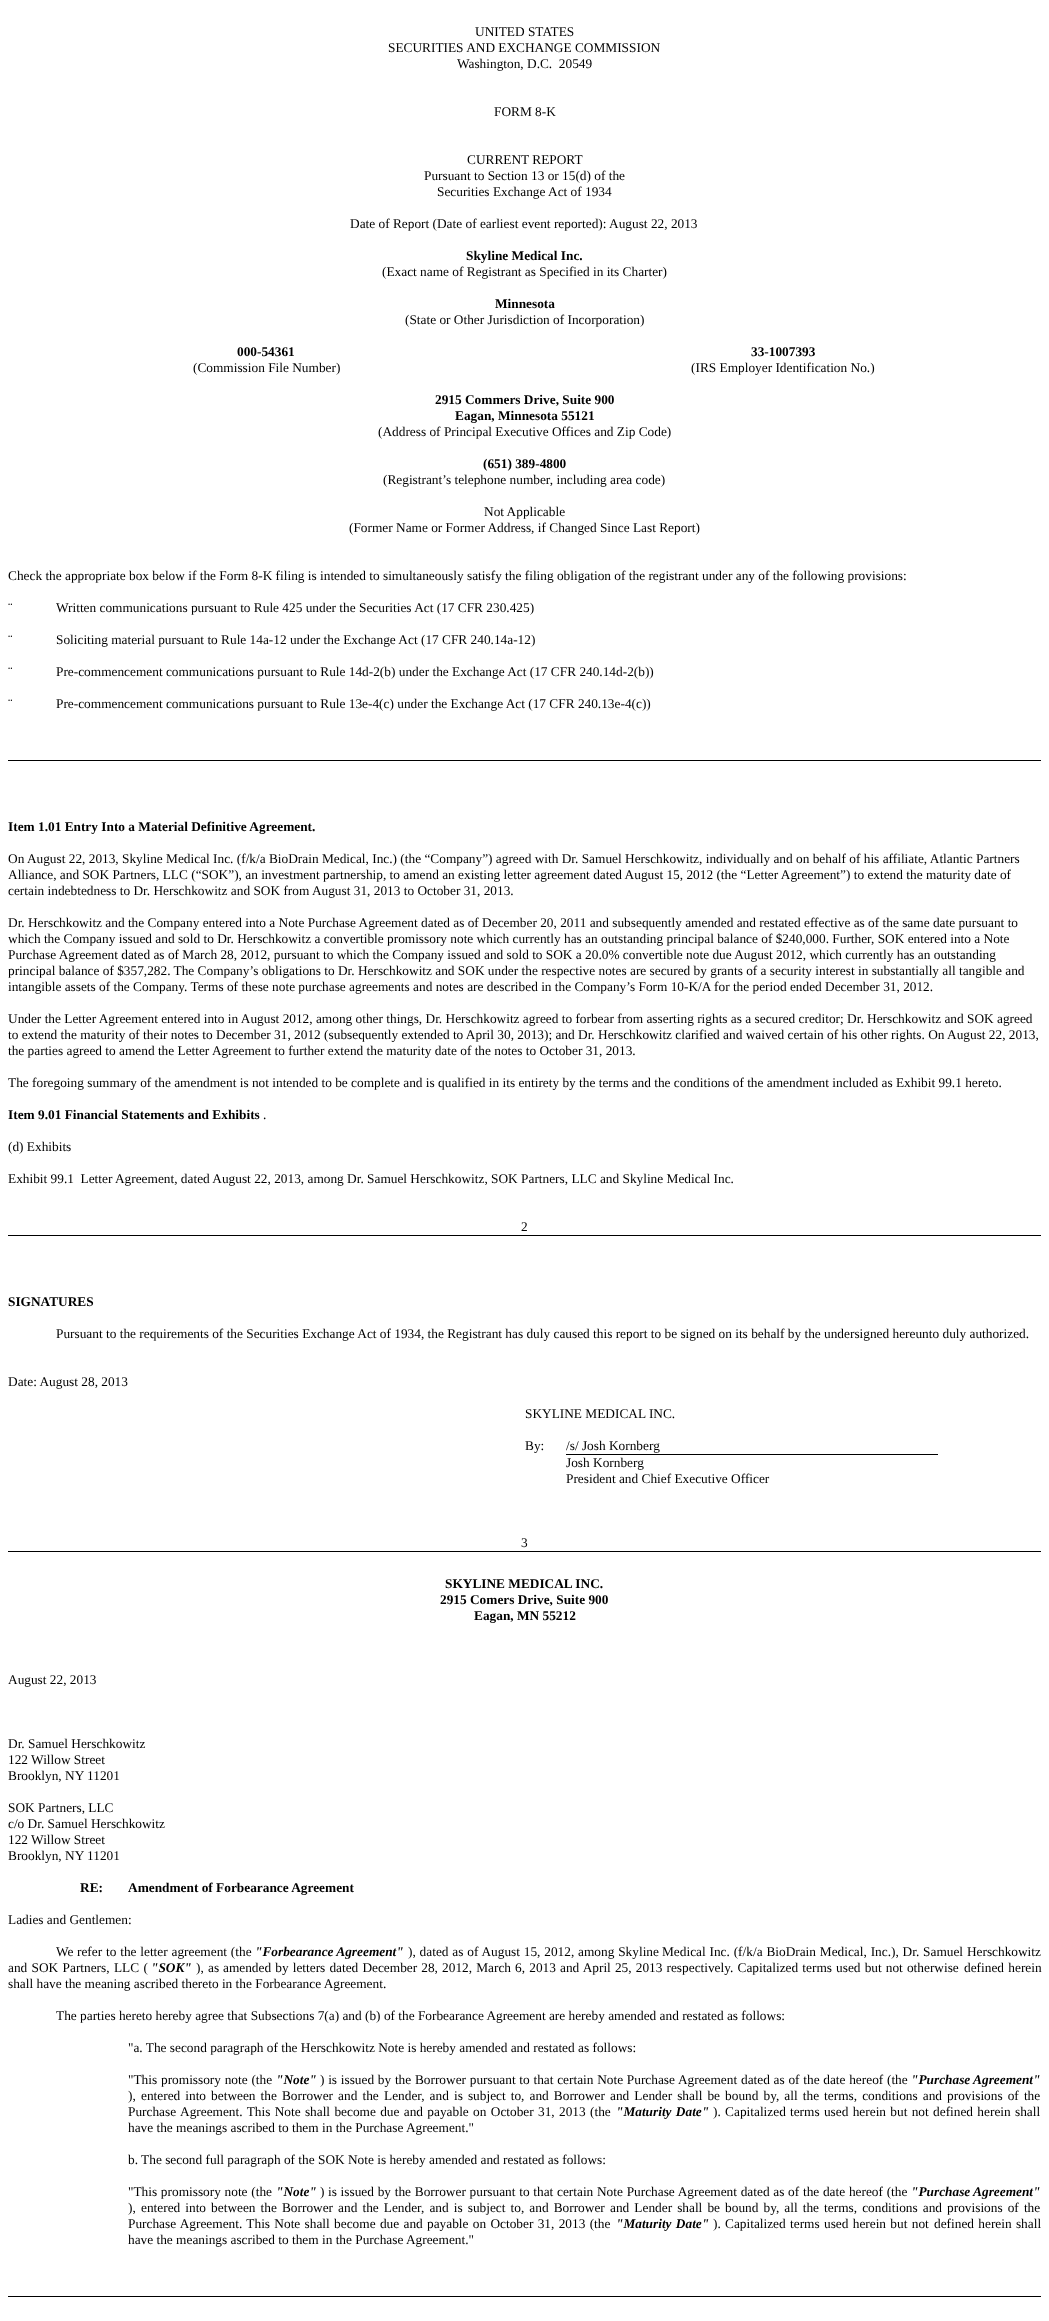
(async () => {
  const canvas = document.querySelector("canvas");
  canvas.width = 1049;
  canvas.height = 2321;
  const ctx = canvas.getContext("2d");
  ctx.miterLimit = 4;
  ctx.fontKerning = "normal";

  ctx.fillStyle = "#ffffff";
  ctx.fillRect(0, 0, 1049, 2321);
  for (const [x, y, w, h, color] of [
    [8, 760, 1033, 1, "#000000"],
    [8, 1235, 1033, 1, "#000000"],
    [566, 1454, 372, 1, "#000000"],
    [8, 1551, 1033, 1, "#000000"],
    [8, 2296, 1033, 1, "#000000"],
  ]) {
    ctx.fillStyle = color;
    ctx.fillRect(x, y, w, h);
  }
  ctx.font = "13.33px Liberation Serif";
  for (const [text, x, y] of [
    ["UNITED STATES", 475, 36],
    ["SECURITIES AND EXCHANGE COMMISSION", 388, 52],
    ["Washington, D.C.  20549", 457, 68],
    ["FORM 8-K", 494, 116],
    ["CURRENT REPORT", 467, 164],
    ["Pursuant to Section 13 or 15(d) of the", 424, 180],
    ["Securities Exchange Act of 1934", 437, 196],
    ["Date of Report (Date of earliest event reported): August 22, 2013", 350, 228],
  ]) {
    ctx.fillText(text, x, y);
  }
  ctx.font = "bold 13.33px Liberation Serif";
  ctx.fillText("Skyline Medical Inc.", 466, 260);
  ctx.font = "13.33px Liberation Serif";
  ctx.fillText("(Exact name of Registrant as Specified in its Charter)", 382, 276);
  ctx.font = "bold 13.33px Liberation Serif";
  ctx.fillText("Minnesota", 495, 308);
  ctx.font = "13.33px Liberation Serif";
  ctx.fillText("(State or Other Jurisdiction of Incorporation)", 405, 324);
  ctx.font = "bold 13.33px Liberation Serif";
  ctx.fillText("000-54361", 237, 356);
  ctx.fillText("33-1007393", 751, 356);
  ctx.font = "13.33px Liberation Serif";
  ctx.fillText("(Commission File Number)", 193, 372);
  ctx.fillText("(IRS Employer Identification No.)", 691, 372);
  ctx.font = "bold 13.33px Liberation Serif";
  ctx.fillText("2915 Commers Drive, Suite 900", 435, 404);
  ctx.fillText("Eagan, Minnesota 55121", 455, 420);
  ctx.font = "13.33px Liberation Serif";
  ctx.fillText("(Address of Principal Executive Offices and Zip Code)", 378, 436);
  ctx.font = "bold 13.33px Liberation Serif";
  ctx.fillText("(651) 389-4800", 483, 468);
  ctx.font = "13.33px Liberation Serif";
  for (const [text, x, y] of [
    ["(Registrant’s telephone number, including area code)", 383, 484],
    ["Not Applicable", 484, 516],
    ["(Former Name or Former Address, if Changed Since Last Report)", 349, 532],
    ["Check the appropriate box below if the Form 8-K filing is intended to simultaneously satisfy the filing obligation of the registrant under any of the following provisions:", 8, 580],
    ["¨", 8, 612],
    ["Written communications pursuant to Rule 425 under the Securities Act (17 CFR 230.425)", 56, 612],
    ["¨", 8, 644],
    ["Soliciting material pursuant to Rule 14a-12 under the Exchange Act (17 CFR 240.14a-12)", 56, 644],
    ["¨", 8, 676],
    ["Pre-commencement communications pursuant to Rule 14d-2(b) under the Exchange Act (17 CFR 240.14d-2(b))", 56, 676],
    ["¨", 8, 708],
    ["Pre-commencement communications pursuant to Rule 13e-4(c) under the Exchange Act (17 CFR 240.13e-4(c))", 56, 708],
  ]) {
    ctx.fillText(text, x, y);
  }
  ctx.font = "bold 13.33px Liberation Serif";
  ctx.fillText("Item 1.01 Entry Into a Material Definitive Agreement.", 8, 831);
  ctx.font = "13.33px Liberation Serif";
  for (const [text, x, y] of [
    ["On August 22, 2013, Skyline Medical Inc. (f/k/a BioDrain Medical, Inc.) (the “Company”) agreed with Dr. Samuel Herschkowitz, individually and on behalf of his affiliate, Atlantic Partners", 8, 863],
    ["Alliance, and SOK Partners, LLC (“SOK”), an investment partnership, to amend an existing letter agreement dated August 15, 2012 (the “Letter Agreement”) to extend the maturity date of", 8, 879],
    ["certain indebtedness to Dr. Herschkowitz and SOK from August 31, 2013 to October 31, 2013.", 8, 895],
    ["Dr. Herschkowitz and the Company entered into a Note Purchase Agreement dated as of December 20, 2011 and subsequently amended and restated effective as of the same date pursuant to", 8, 927],
    ["which the Company issued and sold to Dr. Herschkowitz a convertible promissory note which currently has an outstanding principal balance of $240,000. Further, SOK entered into a Note", 8, 943],
    ["Purchase Agreement dated as of March 28, 2012, pursuant to which the Company issued and sold to SOK a 20.0% convertible note due August 2012, which currently has an outstanding", 8, 959],
    ["principal balance of $357,282. The Company’s obligations to Dr. Herschkowitz and SOK under the respective notes are secured by grants of a security interest in substantially all tangible and", 8, 975],
    ["intangible assets of the Company. Terms of these note purchase agreements and notes are described in the Company’s Form 10-K/A for the period ended December 31, 2012.", 8, 991],
    ["Under the Letter Agreement entered into in August 2012, among other things, Dr. Herschkowitz agreed to forbear from asserting rights as a secured creditor; Dr. Herschkowitz and SOK agreed", 8, 1023],
    ["to extend the maturity of their notes to December 31, 2012 (subsequently extended to April 30, 2013); and Dr. Herschkowitz clarified and waived certain of his other rights. On August 22, 2013,", 8, 1039],
    ["the parties agreed to amend the Letter Agreement to further extend the maturity date of the notes to October 31, 2013.", 8, 1055],
    ["The foregoing summary of the amendment is not intended to be complete and is qualified in its entirety by the terms and the conditions of the amendment included as Exhibit 99.1 hereto.", 8, 1087],
  ]) {
    ctx.fillText(text, x, y);
  }
  ctx.font = "bold 13.33px Liberation Serif";
  ctx.fillText("Item 9.01 Financial Statements and Exhibits", 8, 1119);
  ctx.font = "13.33px Liberation Serif";
  for (const [text, x, y] of [
    [".", 263, 1119],
    ["(d) Exhibits", 8, 1151],
    ["Exhibit 99.1  Letter Agreement, dated August 22, 2013, among Dr. Samuel Herschkowitz, SOK Partners, LLC and Skyline Medical Inc.", 8, 1183],
    ["2", 521, 1231],
  ]) {
    ctx.fillText(text, x, y);
  }
  ctx.font = "bold 13.33px Liberation Serif";
  ctx.fillText("SIGNATURES", 8, 1306);
  ctx.font = "13.33px Liberation Serif";
  for (const [text, x, y] of [
    ["Pursuant to the requirements of the Securities Exchange Act of 1934, the Registrant has duly caused this report to be signed on its behalf by the undersigned hereunto duly authorized.", 56, 1338],
    ["Date: August 28, 2013", 8, 1386],
    ["SKYLINE MEDICAL INC.", 525, 1418],
    ["By:", 525, 1450],
    ["/s/ Josh Kornberg", 566, 1450],
    ["Josh Kornberg", 566, 1467],
    ["President and Chief Executive Officer", 566, 1483],
    ["3", 521, 1547],
  ]) {
    ctx.fillText(text, x, y);
  }
  ctx.font = "bold 13.33px Liberation Serif";
  for (const [text, x, y] of [
    ["SKYLINE MEDICAL INC.", 445, 1588],
    ["2915 Comers Drive, Suite 900", 440, 1604],
    ["Eagan, MN 55212", 474, 1620],
  ]) {
    ctx.fillText(text, x, y);
  }
  ctx.font = "13.33px Liberation Serif";
  for (const [text, x, y] of [
    ["August 22, 2013", 8, 1684],
    ["Dr. Samuel Herschkowitz", 8, 1748],
    ["122 Willow Street", 8, 1764],
    ["Brooklyn, NY 11201", 8, 1780],
    ["SOK Partners, LLC", 8, 1812],
    ["c/o Dr. Samuel Herschkowitz", 8, 1828],
    ["122 Willow Street", 8, 1844],
    ["Brooklyn, NY 11201", 8, 1860],
  ]) {
    ctx.fillText(text, x, y);
  }
  ctx.font = "bold 13.33px Liberation Serif";
  ctx.fillText("RE:", 80, 1892);
  ctx.fillText("Amendment of Forbearance Agreement", 128, 1892);
  ctx.font = "13.33px Liberation Serif";
  ctx.fillText("Ladies and Gentlemen:", 8, 1924);
  ctx.fillText("We", 56, 1956);
  ctx.wordSpacing = "0.5px";
  ctx.fillText("refer to the letter agreement (the", 77, 1956);
  ctx.wordSpacing = "0px";
  ctx.font = "italic bold 13.33px Liberation Serif";
  ctx.fillText("\"Forbearance Agreement\"", 255, 1956);
  ctx.wordSpacing = "0.5px";
  ctx.font = "13.33px Liberation Serif";
  ctx.fillText("), dated as of August 15, 2012, among Skyline", 408, 1956);
  ctx.fillText("Medical Inc. (f/k/a BioDrain Medical, Inc.), Dr. Samuel Herschkowitz", 662, 1956);
  ctx.wordSpacing = "1px";
  ctx.fillText("and SOK Partners, LLC (", 8, 1972);
  ctx.wordSpacing = "0px";
  ctx.font = "italic bold 13.33px Liberation Serif";
  ctx.fillText("\"SOK\"", 151, 1972);
  ctx.wordSpacing = "1px";
  ctx.font = "13.33px Liberation Serif";
  ctx.fillText("), as", 196, 1972);
  ctx.wordSpacing = "0.8px";
  ctx.fillText("amended by letters dated December 28, 2012, March 6, 2013 and April 25, 2013 respectively. Capitalized terms used but not otherwise", 223, 1972);
  ctx.wordSpacing = "1px";
  ctx.fillText("defined herein", 964, 1972);
  ctx.wordSpacing = "0px";
  for (const [text, x, y] of [
    ["shall have the meaning ascribed thereto in the Forbearance Agreement.", 8, 1988],
    ["The parties hereto hereby agree that Subsections 7(a) and (b) of the Forbearance Agreement are hereby amended and restated as follows:", 56, 2020],
    ["\"a. The second paragraph of the Herschkowitz Note is hereby amended and restated as follows:", 128, 2052],
    ["\"This", 128, 2084],
  ]) {
    ctx.fillText(text, x, y);
  }
  ctx.wordSpacing = "0.4px";
  ctx.fillText("promissory note (the", 161, 2084);
  ctx.wordSpacing = "0px";
  ctx.font = "italic bold 13.33px Liberation Serif";
  ctx.fillText("\"Note\"", 276, 2084);
  ctx.wordSpacing = "0.4px";
  ctx.font = "13.33px Liberation Serif";
  ctx.fillText(") is issued by the Borrower pursuant to that certain Note Purchase Agreement", 320, 2084);
  ctx.fillText("dated as of the date hereof (the", 741, 2084);
  ctx.wordSpacing = "0px";
  ctx.font = "italic bold 13.33px Liberation Serif";
  ctx.fillText("\"Purchase Agreement\"", 911, 2084);
  ctx.font = "13.33px Liberation Serif";
  ctx.fillText("),", 128, 2100);
  ctx.wordSpacing = "1.75px";
  ctx.fillText("entered into between the Borrower and the", 141, 2100);
  ctx.fillText("Lender, and is subject to, and Borrower and Lender shall be bound by, all the terms, conditions and provisions of the", 384, 2100);
  ctx.wordSpacing = "0px";
  ctx.fillText("Purchase", 128, 2116);
  ctx.wordSpacing = "1px";
  ctx.fillText("Agreement. This Note shall become due and payable on October 31, 2013 (the", 180, 2116);
  ctx.font = "italic bold 13.33px Liberation Serif";
  ctx.fillText("\"Maturity Date\"", 616, 2116);
  ctx.font = "13.33px Liberation Serif";
  ctx.fillText("). Capitalized", 713, 2116);
  ctx.fillText("terms used herein but not defined herein shall", 790, 2116);
  ctx.wordSpacing = "0px";
  ctx.fillText("have the meanings ascribed to them in the Purchase Agreement.\"", 128, 2132);
  ctx.fillText("b. The second full paragraph of the SOK Note is hereby amended and restated as follows:", 128, 2164);
  ctx.wordSpacing = "0.4px";
  ctx.fillText("\"This promissory note (the", 128, 2196);
  ctx.wordSpacing = "0px";
  ctx.font = "italic bold 13.33px Liberation Serif";
  ctx.fillText("\"Note\"", 276, 2196);
  ctx.font = "13.33px Liberation Serif";
  ctx.fillText(")", 320, 2196);
  ctx.wordSpacing = "0.4px";
  ctx.fillText("is issued by the Borrower pursuant to that certain Note Purchase Agreement dated as of the date hereof (the", 328, 2196);
  ctx.wordSpacing = "0px";
  ctx.font = "italic bold 13.33px Liberation Serif";
  ctx.fillText("\"Purchase Agreement\"", 911, 2196);
  ctx.font = "13.33px Liberation Serif";
  ctx.fillText("),", 128, 2212);
  ctx.wordSpacing = "1.75px";
  ctx.fillText("entered into between the Borrower and the Lender, and is subject to, and Borrower", 141, 2212);
  ctx.fillText("and Lender shall be bound by, all the terms, conditions and provisions of the", 610, 2212);
  ctx.wordSpacing = "1px";
  ctx.fillText("Purchase Agreement. This Note shall become due and", 128, 2228);
  ctx.fillText("payable on October 31, 2013 (the", 427, 2228);
  ctx.font = "italic bold 13.33px Liberation Serif";
  ctx.fillText("\"Maturity Date\"", 616, 2228);
  ctx.wordSpacing = "0px";
  ctx.font = "13.33px Liberation Serif";
  ctx.fillText(").", 713, 2228);
  ctx.wordSpacing = "1px";
  ctx.fillText("Capitalized terms used herein but not", 725, 2228);
  ctx.fillText("defined herein shall", 934, 2228);
  ctx.wordSpacing = "0px";
  ctx.fillText("have the meanings ascribed to them in the Purchase Agreement.\"", 128, 2244);
})();
